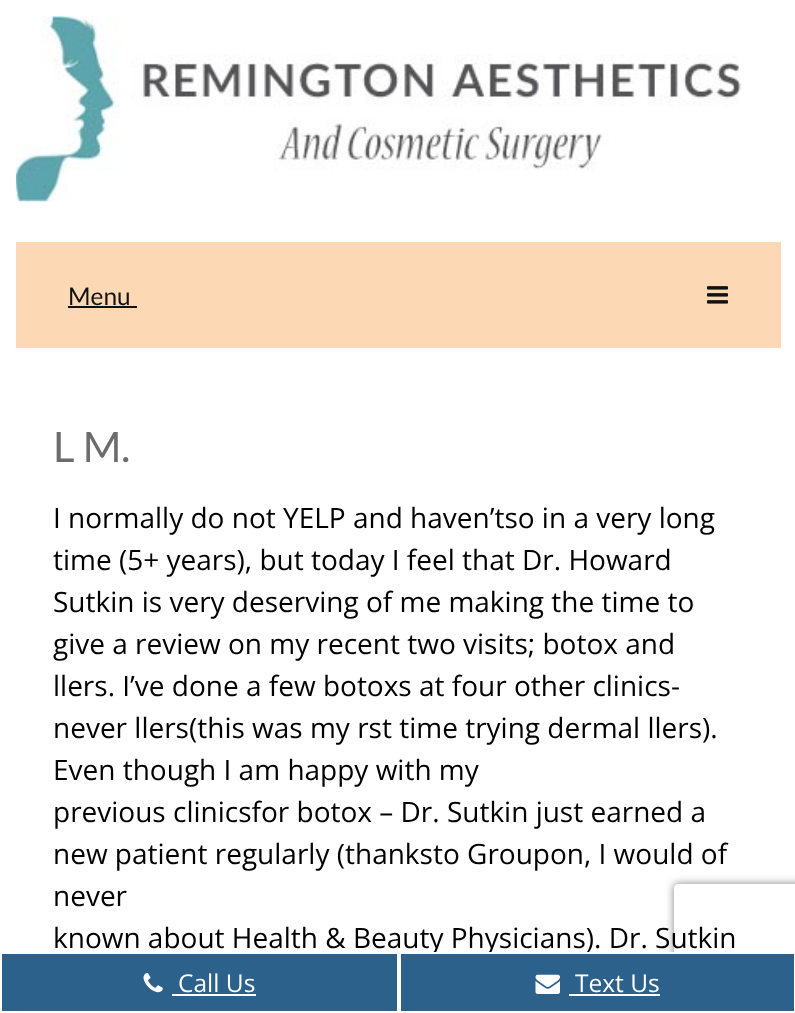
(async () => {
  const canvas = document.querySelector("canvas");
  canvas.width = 795;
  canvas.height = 1013;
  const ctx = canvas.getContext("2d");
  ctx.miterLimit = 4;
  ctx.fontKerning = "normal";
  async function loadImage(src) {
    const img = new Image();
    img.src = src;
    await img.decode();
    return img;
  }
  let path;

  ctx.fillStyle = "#ffffff";
  ctx.fillRect(0, 0, 795, 1013);
  ctx.drawImage(await loadImage("img/1.png"), 15, 15, 727, 187);
  ctx.fillStyle = "#fdd8b5";
  ctx.fillRect(16, 242, 765, 106);
  ctx.fillStyle = "#111111";
  ctx.fillRect(68, 306, 69, 2);
  ctx.drawImage(await loadImage("img/2.png"), 707, 286, 21, 18);
  ctx.save();
  path = new Path2D("M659 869H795V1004H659ZM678 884H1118C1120 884 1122 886 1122 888V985C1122 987 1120 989 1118 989H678C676 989 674 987 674 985V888C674 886 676 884 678 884Z");
  ctx.clip(path, "evenodd");
  ctx.fillStyle = "#808080";
  ctx.filter = "blur(4.5px)";
  ctx.beginPath();
  ctx.roundRect(674, 884, 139, 105, 4);
  ctx.fill();
  ctx.filter = "none";
  ctx.restore();
  ctx.font = "24.5px Lato";
  ctx.fillText("Menu", 68, 305);
  ctx.font = "42px Lato";
  ctx.fillStyle = "#6c6c6e";
  ctx.fillText("L M.", 53, 462);
  ctx.font = "28px Open Sans";
  ctx.fillStyle = "#000000";
  for (const [text, x, y] of [
    ["I normally do not YELP and haven’tso in a very long", 53, 528],
    ["time (5+ years), but today I feel that Dr. Howard", 53, 570],
    ["Sutkin is very deserving of me making the time to", 53, 612],
    ["give a review on my recent two visits; botox and", 53, 654],
    ["llers. I’ve done a few botoxs at four other clinics-", 53, 696],
    ["never llers(this was my rst time trying dermal llers).", 53, 738],
    ["Even though I am happy with my", 53, 780],
    ["previous clinicsfor botox – Dr. Sutkin just earned a", 53, 822],
    ["new patient regularly (thanksto Groupon, I would of", 53, 864],
    ["never", 53, 906],
    ["known about Health & Beauty Physicians). Dr. Sutkin", 53, 948],
  ]) {
    ctx.fillText(text, x, y);
  }
  ctx.fillStyle = "#2c618c";
  ctx.fillRect(2, 954, 395, 57);
  ctx.drawImage(await loadImage("img/3.png"), 143, 973, 20, 20);
  ctx.font = "24.5px Open Sans";
  ctx.fillStyle = "#ffffff";
  ctx.fillText("Call Us", 178, 992);
  ctx.fillRect(172, 994, 84, 2);
  ctx.fillStyle = "#2c618c";
  ctx.beginPath();
  ctx.rect(400, 953, 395, 59);
  ctx.fill();
  ctx.strokeStyle = "#ffffff";
  ctx.lineWidth = 2;
  ctx.stroke();
  ctx.drawImage(await loadImage("img/4.png"), 535, 974, 25, 20);
  ctx.fillStyle = "#ffffff";
  ctx.fillText("Text Us", 575, 992);
  ctx.fillRect(569, 994, 91, 2);
})();
